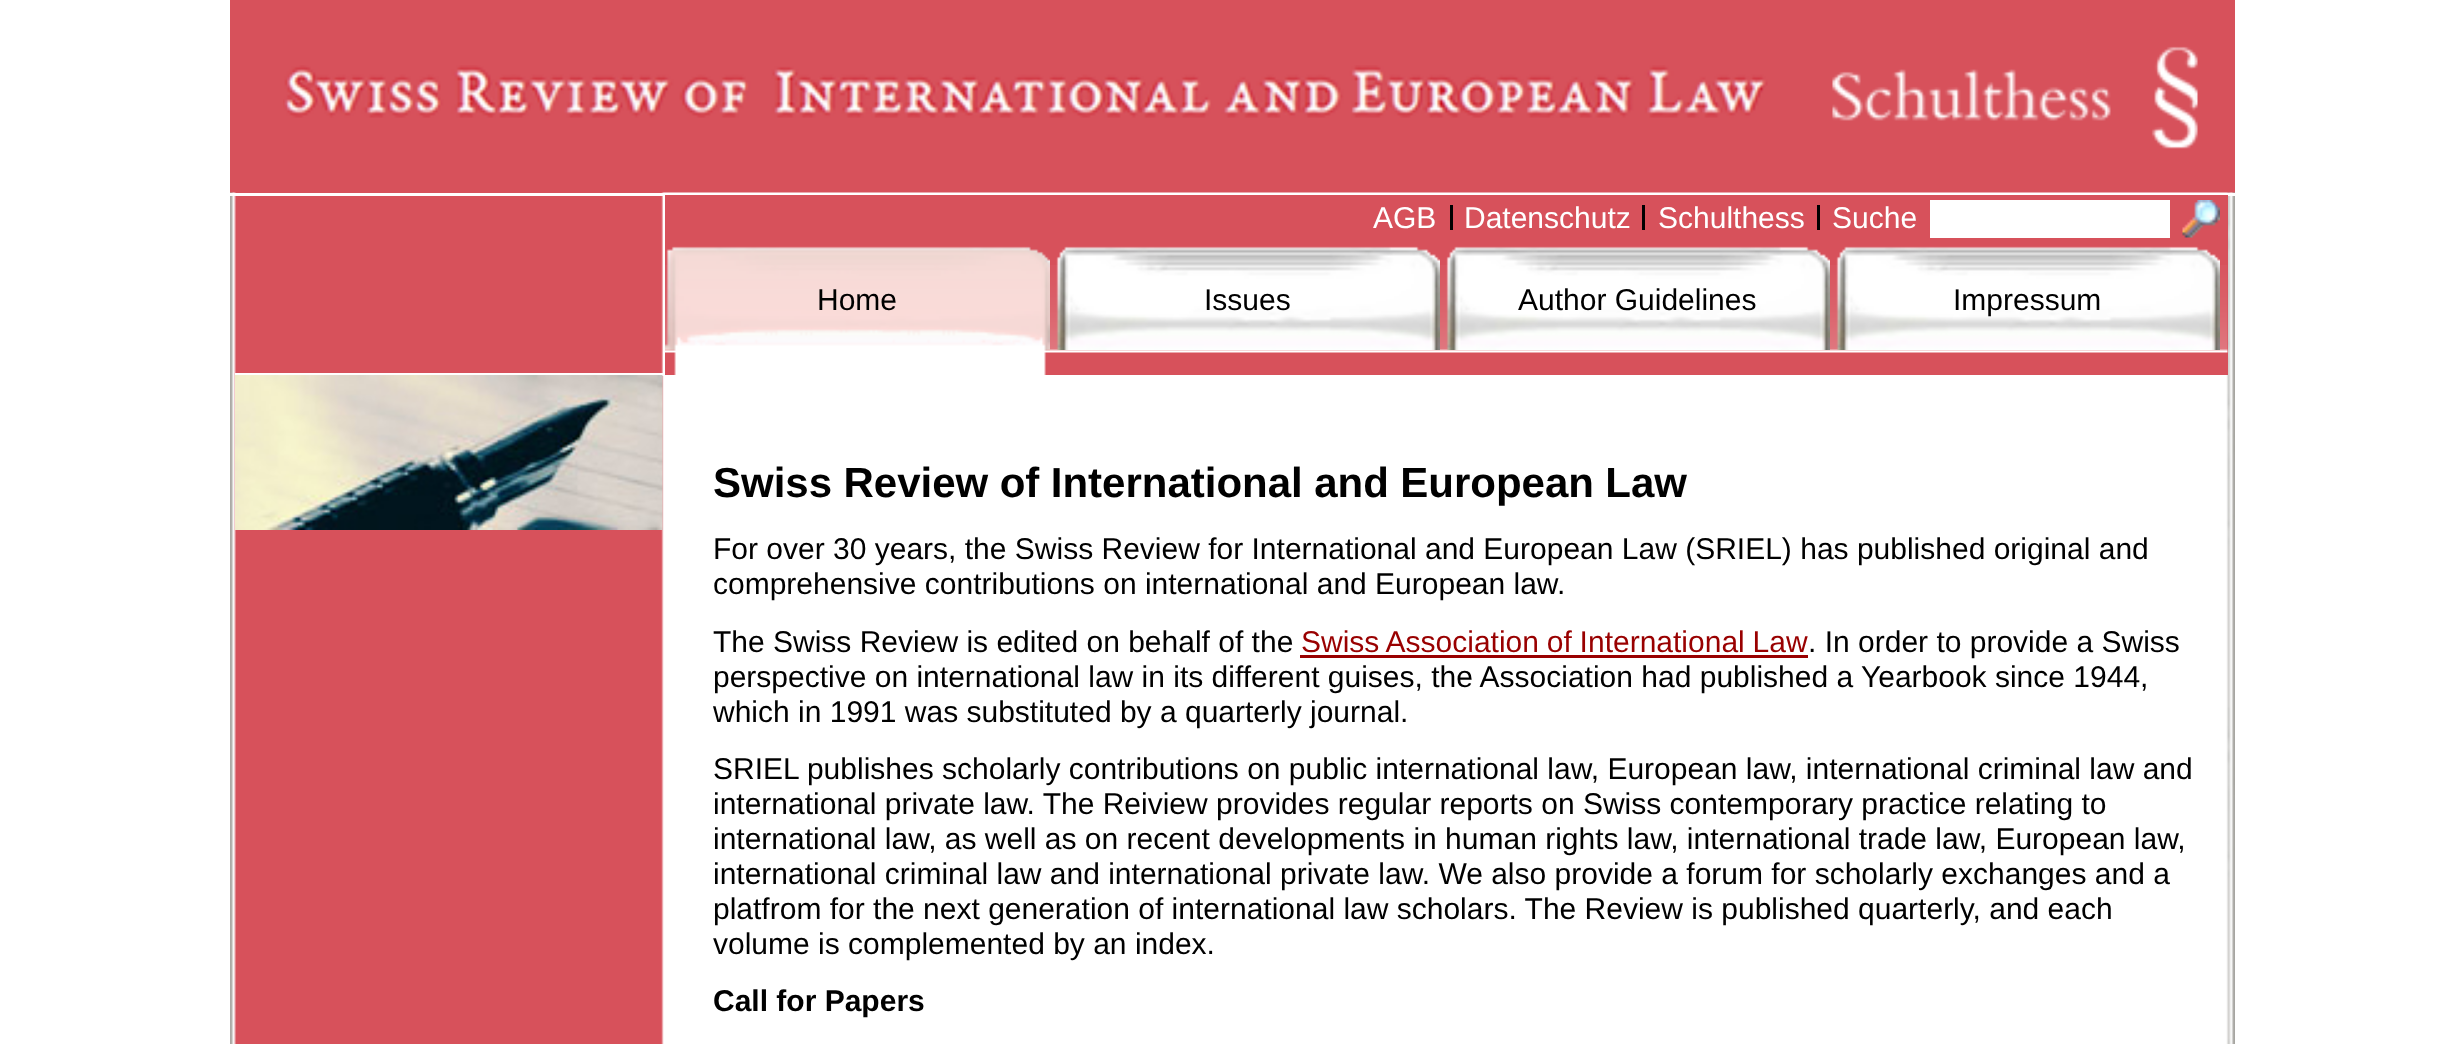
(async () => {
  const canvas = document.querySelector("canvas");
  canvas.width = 2463;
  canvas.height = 1044;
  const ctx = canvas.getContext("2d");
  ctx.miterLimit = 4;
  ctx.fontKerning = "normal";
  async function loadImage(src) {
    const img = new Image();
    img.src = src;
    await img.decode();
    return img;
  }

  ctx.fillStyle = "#ffffff";
  ctx.fillRect(0, 0, 2463, 1044);
  ctx.fillStyle = "#d7515b";
  ctx.fillRect(230, 0, 2005, 193);
  ctx.drawImage(await loadImage("img/1.png"), 283, 65, 1485, 53);
  ctx.drawImage(await loadImage("img/2.png"), 1832, 46, 366, 103);
  ctx.drawImage(await loadImage("img/3.png"), 230, 192, 2005, 183);
  ctx.fillStyle = "#ffffff";
  ctx.fillRect(230, 193, 2005, 3);
  ctx.fillRect(663, 195, 1, 180);
  ctx.drawImage(await loadImage("img/10.png"), 230, 375, 2005, 669);
  for (const [x, y, w, h, color] of [
    [235, 373, 430, 3, "#ffffff"],
    [665, 195, 1563, 180, "#d7515b"],
    [1450, 205, 3, 25, "#000000"],
    [1642, 205, 3, 25, "#000000"],
    [1817, 205, 3, 25, "#000000"],
    [1930, 200, 240, 38, "#ffffff"],
  ]) {
    ctx.fillStyle = color;
    ctx.fillRect(x, y, w, h);
  }
  ctx.drawImage(await loadImage("img/4.png"), 2182, 200, 38, 38);
  ctx.drawImage(await loadImage("img/5.png"), 665, 265, 1563, 88);
  ctx.drawImage(await loadImage("img/6.png"), 665, 246, 385, 129);
  ctx.drawImage(await loadImage("img/7.png"), 1056, 246, 384, 104);
  ctx.drawImage(await loadImage("img/8.png"), 1446, 246, 384, 104);
  ctx.drawImage(await loadImage("img/9.png"), 1836, 246, 384, 104);
  ctx.drawImage(await loadImage("img/11.png"), 235, 375, 428, 155);
  ctx.fillStyle = "#990000";
  ctx.fillRect(1300, 655, 508, 3);
  ctx.font = "30px Liberation Sans";
  ctx.fillStyle = "#ffffff";
  for (const [text, x, y] of [
    ["AGB", 1373, 228],
    ["Datenschutz", 1464, 228],
    ["Schulthess", 1658, 228],
    ["Suche", 1832, 228],
  ]) {
    ctx.fillText(text, x, y);
  }
  ctx.fillStyle = "#000000";
  for (const [text, x, y] of [
    ["Home", 817, 310],
    ["Issues", 1204, 310],
    ["Author Guidelines", 1518, 310],
    ["Impressum", 1953, 310],
  ]) {
    ctx.fillText(text, x, y);
  }
  ctx.wordSpacing = "-0.25px";
  ctx.font = "bold 42px Liberation Sans";
  ctx.fillText("Swiss Review of International and European Law", 713, 497);
  ctx.wordSpacing = "0px";
  ctx.font = "30px Liberation Sans";
  for (const [text, x, y] of [
    ["For over 30 years, the Swiss Review for International and European Law (SRIEL) has published original and", 713, 559],
    ["comprehensive contributions on international and European law.", 713, 594],
    ["The Swiss Review is edited on behalf of the", 713, 652],
  ]) {
    ctx.fillText(text, x, y);
  }
  ctx.wordSpacing = "-0.5px";
  ctx.fillStyle = "#990000";
  ctx.fillText("Swiss Association of International Law", 1301, 652);
  ctx.wordSpacing = "0px";
  ctx.fillStyle = "#000000";
  for (const [text, x, y] of [
    [". In order to provide a Swiss", 1808, 652],
    ["perspective on international law in its different guises, the Association had published a Yearbook since 1944,", 713, 687],
    ["which in 1991 was substituted by a quarterly journal.", 713, 722],
    ["SRIEL publishes scholarly contributions on public international law, European law, international criminal law and", 713, 779],
    ["international private law. The Reiview provides regular reports on Swiss contemporary practice relating to", 713, 814],
    ["international law, as well as on recent developments in human rights law, international trade law, European law,", 713, 849],
    ["international criminal law and international private law. We also provide a forum for scholarly exchanges and a", 713, 884],
    ["platfrom for the next generation of international law scholars. The Review is published quarterly, and each", 713, 919],
    ["volume is complemented by an index.", 713, 954],
  ]) {
    ctx.fillText(text, x, y);
  }
  ctx.font = "bold 30px Liberation Sans";
  ctx.fillText("Call for Papers", 713, 1011);
})();
